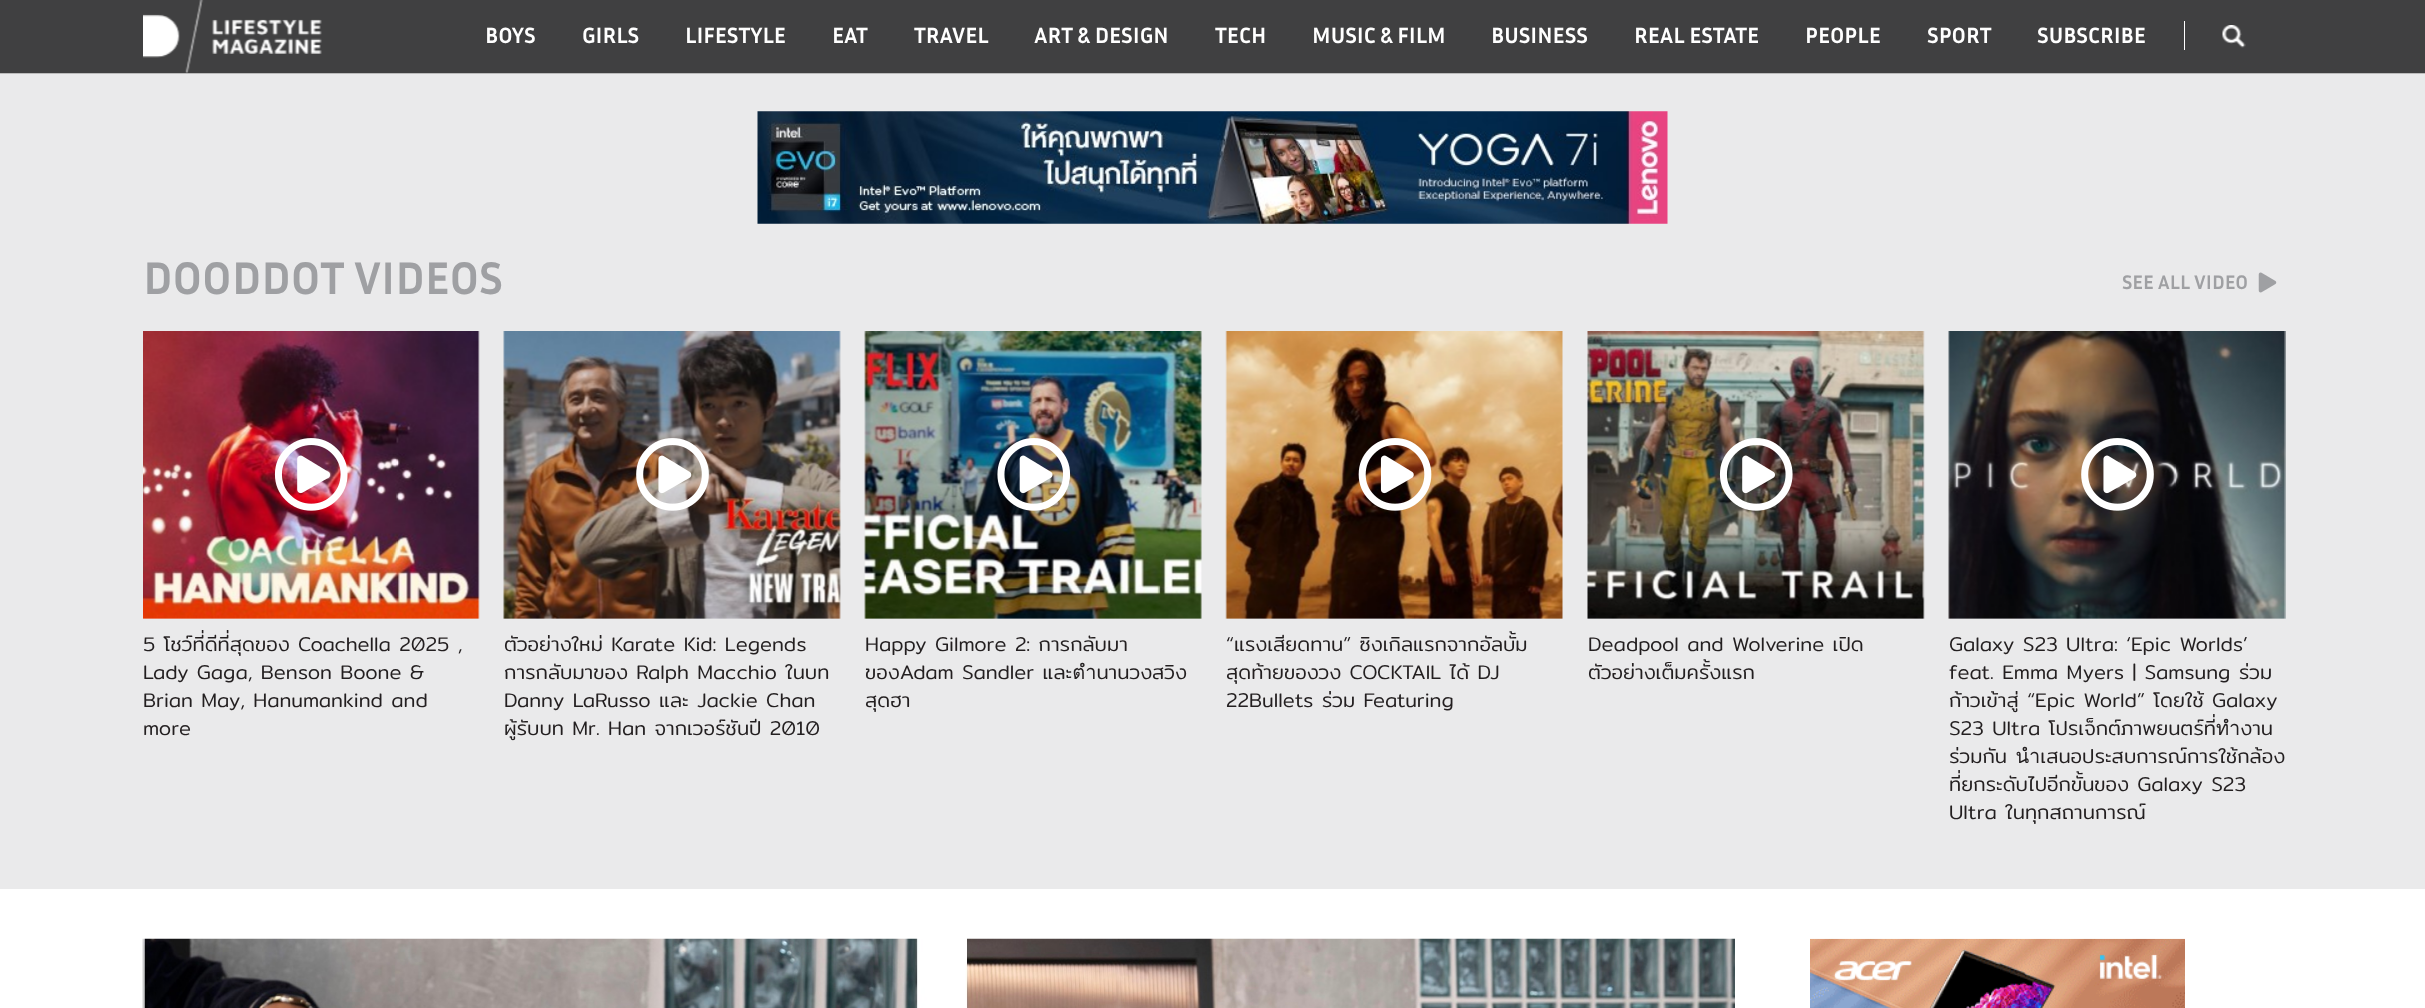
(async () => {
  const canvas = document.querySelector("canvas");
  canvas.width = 2425;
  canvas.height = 1008;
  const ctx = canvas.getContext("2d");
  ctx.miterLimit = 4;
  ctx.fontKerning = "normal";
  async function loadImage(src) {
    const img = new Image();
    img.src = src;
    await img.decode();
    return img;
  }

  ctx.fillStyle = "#ffffff";
  ctx.fillRect(0, 0, 2425, 1008);
  ctx.fillStyle = "#404041";
  ctx.fillRect(0, 0, 2425, 73);
  ctx.drawImage(await loadImage("img/1.png"), 143, 0, 179, 73);
  ctx.fillStyle = "#ffffff";
  ctx.fillRect(2184, 21, 1, 29);
  ctx.drawImage(await loadImage("img/2.png"), 2222, 25, 24, 23);
  ctx.fillStyle = "#bbbbbb";
  ctx.fillRect(0, 73, 2425, 1);
  ctx.fillStyle = "#eaeaeb";
  ctx.fillRect(0, 74, 2425, 815);
  ctx.drawImage(await loadImage("img/3.png"), 757, 111, 911, 113);
  ctx.drawImage(await loadImage("img/4.png"), 2258, 272, 19, 21);
  ctx.drawImage(await loadImage("img/5.png"), 143, 331, 337, 288);
  ctx.drawImage(await loadImage("img/6.png"), 274, 438, 74, 73);
  ctx.drawImage(await loadImage("img/7.png"), 503, 331, 338, 288);
  ctx.drawImage(await loadImage("img/8.png"), 636, 438, 73, 73);
  ctx.drawImage(await loadImage("img/9.png"), 864, 331, 338, 288);
  ctx.drawImage(await loadImage("img/10.png"), 997, 438, 74, 73);
  ctx.drawImage(await loadImage("img/11.png"), 1225, 331, 338, 288);
  ctx.drawImage(await loadImage("img/12.png"), 1358, 438, 74, 73);
  ctx.drawImage(await loadImage("img/13.png"), 1587, 331, 338, 288);
  ctx.drawImage(await loadImage("img/14.png"), 1719, 438, 74, 73);
  ctx.drawImage(await loadImage("img/15.png"), 1948, 331, 338, 288);
  ctx.drawImage(await loadImage("img/16.png"), 2081, 438, 73, 73);
  ctx.drawImage(await loadImage("img/17.png"), 142, 938, 1593, 70);
  ctx.drawImage(await loadImage("img/18.png"), 1810, 938, 375, 70);
  ctx.font = "bold 22.5px Inria Sans";
  ctx.fillStyle = "#ffffff";
  for (const [text, x, y] of [
    ["BOYS", 485, 43],
    ["GIRLS", 582, 43],
    ["LIFESTYLE", 685, 43],
    ["EAT", 832, 43],
    ["TRAVEL", 914, 43],
    ["ART & DESIGN", 1034, 43],
    ["TECH", 1215, 43],
    ["MUSIC & FILM", 1312, 43],
    ["BUSINESS", 1491, 43],
    ["REAL ESTATE", 1634, 43],
    ["PEOPLE", 1805, 43],
    ["SPORT", 1927, 43],
    ["SUBSCRIBE", 2037, 43],
  ]) {
    ctx.fillText(text, x, y);
  }
  ctx.font = "bold 46.25px Inria Sans";
  ctx.fillStyle = "#9fa0a3";
  ctx.fillText("DOODDOT VIDEOS", 143, 294);
  ctx.font = "bold 20px Inria Sans";
  ctx.fillText("SEE ALL VIDEO", 2122, 289);
  ctx.font = "300 20px Mitr";
  ctx.fillStyle = "#231f20";
  for (const [text, x, y] of [
    ["5 โชว์ที่ดีที่สุดของ Coachella 2025 ,", 143, 651],
    ["Lady Gaga, Benson Boone &", 143, 679],
    ["Brian May, Hanumankind and", 143, 707],
    ["more", 143, 735],
    ["ตัวอย่างใหม่ Karate Kid: Legends", 504, 651],
    ["การกลับมาของ Ralph Macchio ในบท", 504, 679],
    ["Danny LaRusso และ Jackie Chan", 504, 707],
    ["ผู้รับบท Mr. Han จากเวอร์ชันปี 2010", 504, 735],
    ["Happy Gilmore 2: การกลับมา", 865, 651],
    ["ของAdam Sandler และตำนานวงสวิง", 865, 679],
    ["สุดฮา", 865, 707],
    ["“แรงเสียดทาน” ซิงเกิลแรกจากอัลบั้ม", 1226, 651],
    ["สุดท้ายของวง COCKTAIL ได้ DJ", 1226, 679],
    ["22Bullets ร่วม Featuring", 1226, 707],
    ["Deadpool and Wolverine เปิด", 1588, 651],
    ["ตัวอย่างเต็มครั้งแรก", 1588, 679],
    ["Galaxy S23 Ultra: ‘Epic Worlds’", 1949, 651],
    ["feat. Emma Myers | Samsung ร่วม", 1949, 679],
    ["ก้าวเข้าสู่ “Epic World” โดยใช้ Galaxy", 1949, 707],
    ["S23 Ultra โปรเจ็กต์ภาพยนตร์ที่ทำงาน", 1949, 735],
    ["ร่วมกัน นำเสนอประสบการณ์การใช้กล้อง", 1949, 763],
    ["ที่ยกระดับไปอีกขั้นของ Galaxy S23", 1949, 791],
    ["Ultra ในทุกสถานการณ์", 1949, 819],
  ]) {
    ctx.fillText(text, x, y);
  }
})();
